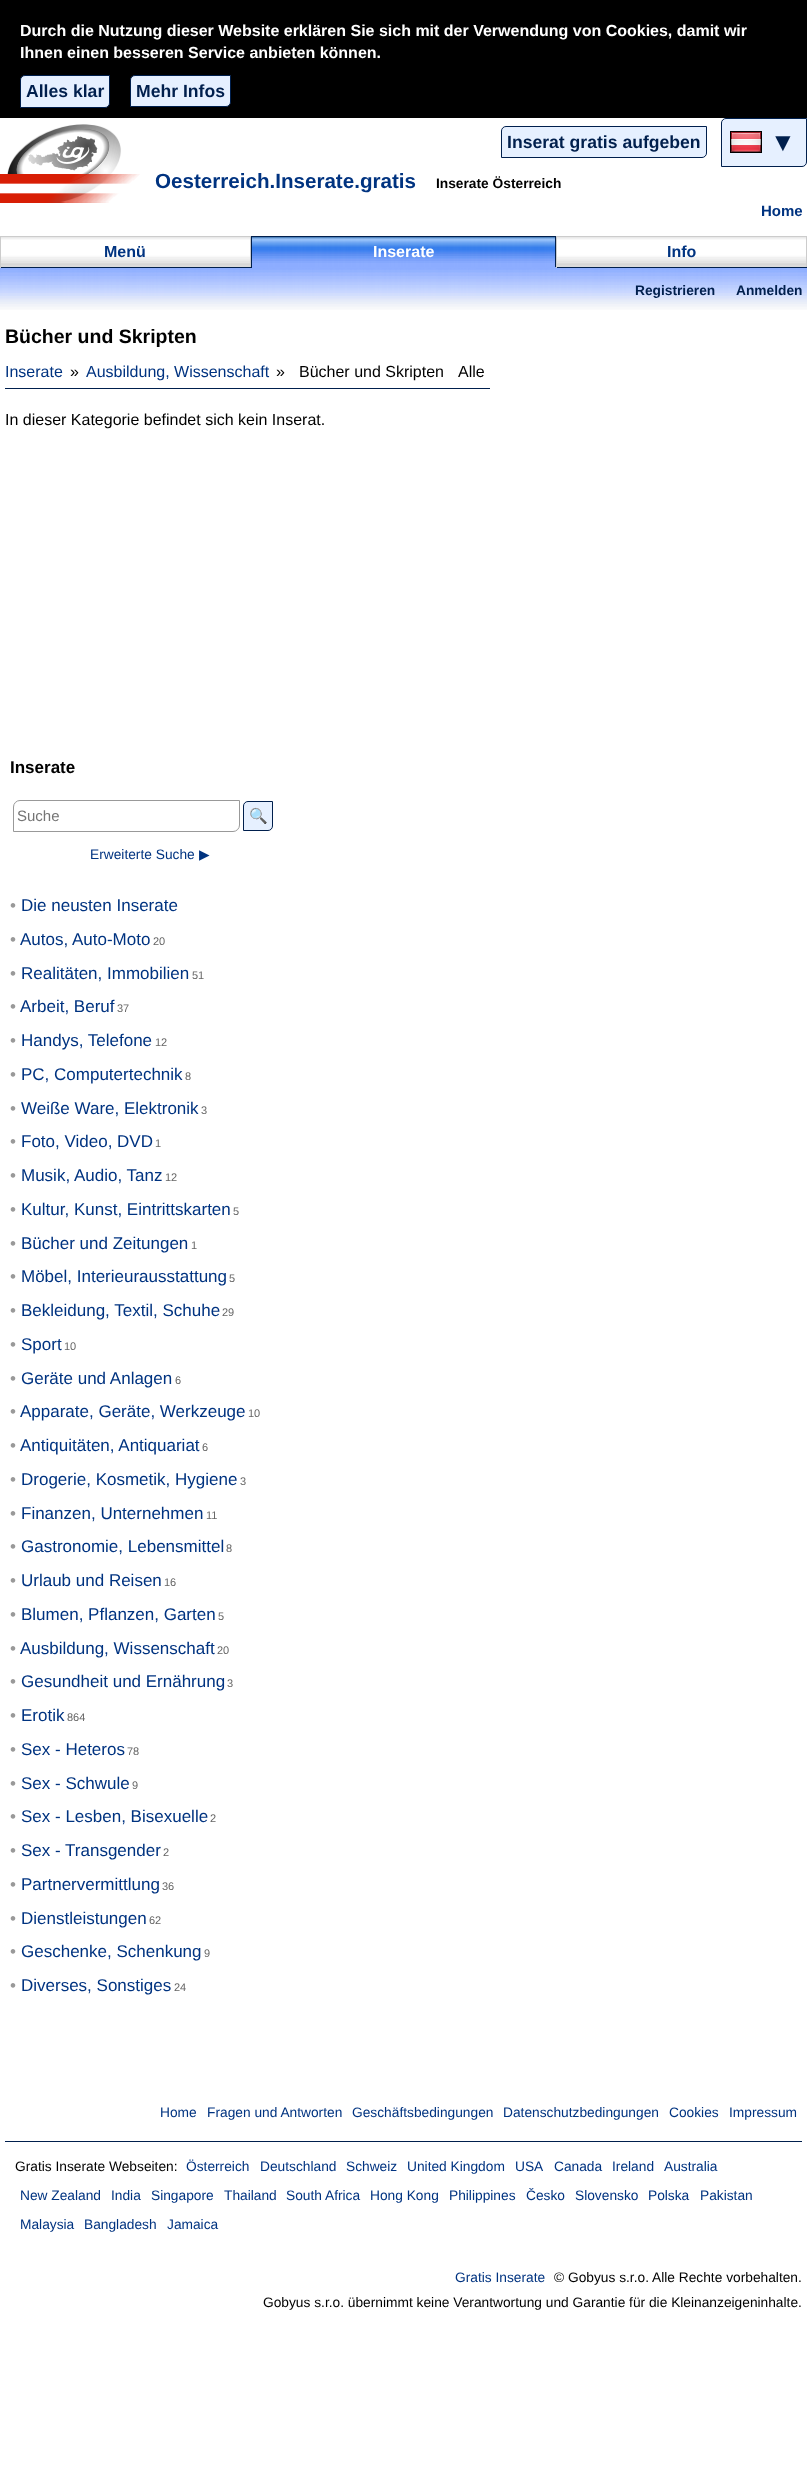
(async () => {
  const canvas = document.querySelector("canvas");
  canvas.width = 807;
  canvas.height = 2476;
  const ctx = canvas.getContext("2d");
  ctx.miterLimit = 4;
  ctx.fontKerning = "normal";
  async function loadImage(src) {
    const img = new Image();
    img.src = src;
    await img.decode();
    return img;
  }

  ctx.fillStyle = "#ffffff";
  ctx.fillRect(0, 0, 807, 2476);
  ctx.fillStyle = "#000000";
  ctx.fillRect(0, 0, 807, 118);
  ctx.fillStyle = "#e6f0ff";
  ctx.beginPath();
  ctx.roundRect(20.5, 75.5, 89, 32, [4.5, 0, 4.5, 0]);
  ctx.fill();
  ctx.strokeStyle = "#001f4d";
  ctx.stroke();
  ctx.beginPath();
  ctx.roundRect(130.5, 75.5, 100, 31, [4.5, 0, 4.5, 0]);
  ctx.fill();
  ctx.stroke();
  ctx.drawImage(await loadImage("img/1.png"), 0, 124, 140, 79);
  ctx.beginPath();
  ctx.roundRect(501.5, 126.5, 205, 31, [4.5, 0, 4.5, 0]);
  ctx.fill();
  ctx.stroke();
  ctx.beginPath();
  ctx.roundRect(721.5, 118.5, 85, 48, [4.5, 0, 4.5, 0]);
  ctx.fill();
  ctx.stroke();
  ctx.drawImage(await loadImage("img/2.png"), 730, 131, 32, 22);
  ctx.drawImage(await loadImage("img/3.png"), 1, 237, 249, 30);
  for (const [x, y, w, h, color] of [
    [0, 236, 251, 1, "#cccccc"],
    [250, 236, 1, 32, "#cccccc"],
    [0, 267, 251, 1, "#001f4d"],
    [0, 236, 1, 32, "#cccccc"],
  ]) {
    ctx.fillStyle = color;
    ctx.fillRect(x, y, w, h);
  }
  ctx.drawImage(await loadImage("img/4.png"), 252, 237, 303, 30);
  for (const [x, y, w, h, color] of [
    [251, 236, 305, 1, "#001f4d"],
    [555, 236, 1, 32, "#001f4d"],
    [251, 267, 305, 1, "#8dadff"],
    [251, 236, 1, 32, "#001f4d"],
  ]) {
    ctx.fillStyle = color;
    ctx.fillRect(x, y, w, h);
  }
  ctx.drawImage(await loadImage("img/3.png"), 557, 237, 249, 30);
  for (const [x, y, w, h, color] of [
    [556, 236, 251, 1, "#cccccc"],
    [806, 236, 1, 32, "#cccccc"],
    [556, 267, 251, 1, "#001f4d"],
    [556, 236, 1, 32, "#cccccc"],
  ]) {
    ctx.fillStyle = color;
    ctx.fillRect(x, y, w, h);
  }
  ctx.drawImage(await loadImage("img/5.png"), 0, 268, 807, 42);
  ctx.fillStyle = "#001f4d";
  ctx.fillRect(5, 388, 485, 1);
  ctx.beginPath();
  ctx.roundRect(13.5, 800.5, 226, 31, [6.5, 0, 6.5, 0]);
  ctx.strokeStyle = "#999999";
  ctx.stroke();
  ctx.fillStyle = "#e6f0ff";
  ctx.beginPath();
  ctx.roundRect(243.5, 801.5, 29, 29, [4.5, 0, 4.5, 0]);
  ctx.fill();
  ctx.strokeStyle = "#001f4d";
  ctx.stroke();
  ctx.fillStyle = "#001f4d";
  ctx.fillRect(5, 2141, 797, 1);
  ctx.font = "bold 16px Liberation Sans";
  ctx.fillStyle = "#ffffff";
  ctx.fillText("Durch die Nutzung dieser Website erklären Sie sich mit der Verwendung von Cookies, damit wir", 20, 36);
  ctx.fillText("Ihnen einen besseren Service anbieten können.", 20, 58);
  ctx.font = "bold 17.6px Liberation Sans";
  ctx.fillStyle = "#001f4d";
  for (const [text, x, y] of [
    ["Alles klar", 26, 97],
    ["Mehr Infos", 136, 97],
    ["Inserat gratis aufgeben", 507, 148],
  ]) {
    ctx.fillText(text, x, y);
  }
  ctx.font = "bold 26px Liberation Sans";
  ctx.fillText("▼", 770, 151);
  ctx.font = "bold 20.6px Liberation Sans";
  ctx.fillStyle = "#003380";
  ctx.fillText("Oesterreich.Inserate.gratis", 155, 188);
  ctx.font = "bold 13.75px Liberation Sans";
  ctx.fillStyle = "#000000";
  ctx.fillText("Inserate Österreich", 436, 188);
  ctx.font = "bold 15px Liberation Sans";
  ctx.fillStyle = "#003380";
  ctx.fillText("Home", 761, 216);
  ctx.font = "bold 16px Liberation Sans";
  ctx.fillText("Menü", 104, 257);
  ctx.fillStyle = "#ffffff";
  ctx.fillText("Inserate", 373, 257);
  ctx.fillStyle = "#003380";
  ctx.fillText("Info", 667, 257);
  ctx.font = "bold 13.75px Liberation Sans";
  ctx.fillStyle = "#001f4d";
  ctx.fillText("Registrieren", 635, 295);
  ctx.fillText("Anmelden", 736, 295);
  ctx.font = "bold 19.5px Liberation Sans";
  ctx.fillStyle = "#000000";
  ctx.fillText("Bücher und Skripten", 5, 343);
  ctx.font = "16px Liberation Sans";
  ctx.fillStyle = "#003380";
  ctx.fillText("Inserate", 5, 377);
  ctx.fillStyle = "#000000";
  ctx.fillText("»", 70, 377);
  ctx.fillStyle = "#003380";
  ctx.fillText("Ausbildung, Wissenschaft", 86, 377);
  ctx.fillStyle = "#000000";
  for (const [text, x, y] of [
    ["»", 276, 377],
    ["Bücher und Skripten", 299, 377],
    ["Alle", 458, 377],
    ["In dieser Kategorie befindet sich kein Inserat.", 5, 425],
  ]) {
    ctx.fillText(text, x, y);
  }
  ctx.font = "bold 17px Liberation Sans";
  ctx.fillText("Inserate", 10, 773);
  ctx.font = "15px Liberation Sans";
  ctx.fillStyle = "#757575";
  ctx.fillText("Suche", 17, 821);
  ctx.font = "bold 15px Noto Color Emoji";
  ctx.fillStyle = "#001f4d";
  ctx.fillText("🔍", 249, 821);
  ctx.font = "13.75px Liberation Sans";
  ctx.fillStyle = "#003380";
  ctx.fillText("Erweiterte Suche", 90, 859);
  ctx.font = "13.75px DejaVu Sans";
  ctx.fillText("▶", 199, 859);
  ctx.font = "17px Liberation Sans";
  ctx.fillStyle = "#999999";
  ctx.fillText("•", 10, 911);
  ctx.fillStyle = "#003380";
  ctx.fillText("Die neusten Inserate", 21, 911);
  ctx.fillStyle = "#999999";
  ctx.fillText("•", 10, 945);
  ctx.fillStyle = "#003380";
  ctx.fillText("Autos, Auto-Moto", 20, 945);
  ctx.font = "11px Liberation Sans";
  ctx.fillStyle = "#666666";
  ctx.fillText("20", 153, 945);
  ctx.font = "17px Liberation Sans";
  ctx.fillStyle = "#999999";
  ctx.fillText("•", 10, 979);
  ctx.fillStyle = "#003380";
  ctx.fillText("Realitäten, Immobilien", 21, 979);
  ctx.font = "11px Liberation Sans";
  ctx.fillStyle = "#666666";
  ctx.fillText("51", 192, 979);
  ctx.font = "17px Liberation Sans";
  ctx.fillStyle = "#999999";
  ctx.fillText("•", 10, 1012);
  ctx.fillStyle = "#003380";
  ctx.fillText("Arbeit, Beruf", 20, 1012);
  ctx.font = "11px Liberation Sans";
  ctx.fillStyle = "#666666";
  ctx.fillText("37", 117, 1012);
  ctx.font = "17px Liberation Sans";
  ctx.fillStyle = "#999999";
  ctx.fillText("•", 10, 1046);
  ctx.fillStyle = "#003380";
  ctx.fillText("Handys, Telefone", 21, 1046);
  ctx.font = "11px Liberation Sans";
  ctx.fillStyle = "#666666";
  ctx.fillText("12", 155, 1046);
  ctx.font = "17px Liberation Sans";
  ctx.fillStyle = "#999999";
  ctx.fillText("•", 10, 1080);
  ctx.fillStyle = "#003380";
  ctx.fillText("PC, Computertechnik", 21, 1080);
  ctx.font = "11px Liberation Sans";
  ctx.fillStyle = "#666666";
  ctx.fillText("8", 185, 1080);
  ctx.font = "17px Liberation Sans";
  ctx.fillStyle = "#999999";
  ctx.fillText("•", 10, 1114);
  ctx.fillStyle = "#003380";
  ctx.fillText("Weiße Ware, Elektronik", 21, 1114);
  ctx.font = "11px Liberation Sans";
  ctx.fillStyle = "#666666";
  ctx.fillText("3", 201, 1114);
  ctx.font = "17px Liberation Sans";
  ctx.fillStyle = "#999999";
  ctx.fillText("•", 10, 1147);
  ctx.fillStyle = "#003380";
  ctx.fillText("Foto, Video, DVD", 21, 1147);
  ctx.font = "11px Liberation Sans";
  ctx.fillStyle = "#666666";
  ctx.fillText("1", 155, 1147);
  ctx.font = "17px Liberation Sans";
  ctx.fillStyle = "#999999";
  ctx.fillText("•", 10, 1181);
  ctx.fillStyle = "#003380";
  ctx.fillText("Musik, Audio, Tanz", 21, 1181);
  ctx.font = "11px Liberation Sans";
  ctx.fillStyle = "#666666";
  ctx.fillText("12", 165, 1181);
  ctx.font = "17px Liberation Sans";
  ctx.fillStyle = "#999999";
  ctx.fillText("•", 10, 1215);
  ctx.fillStyle = "#003380";
  ctx.fillText("Kultur, Kunst, Eintrittskarten", 21, 1215);
  ctx.font = "11px Liberation Sans";
  ctx.fillStyle = "#666666";
  ctx.fillText("5", 233, 1215);
  ctx.font = "17px Liberation Sans";
  ctx.fillStyle = "#999999";
  ctx.fillText("•", 10, 1249);
  ctx.fillStyle = "#003380";
  ctx.fillText("Bücher und Zeitungen", 21, 1249);
  ctx.font = "11px Liberation Sans";
  ctx.fillStyle = "#666666";
  ctx.fillText("1", 191, 1249);
  ctx.font = "17px Liberation Sans";
  ctx.fillStyle = "#999999";
  ctx.fillText("•", 10, 1282);
  ctx.fillStyle = "#003380";
  ctx.fillText("Möbel, Interieurausstattung", 21, 1282);
  ctx.font = "11px Liberation Sans";
  ctx.fillStyle = "#666666";
  ctx.fillText("5", 229, 1282);
  ctx.font = "17px Liberation Sans";
  ctx.fillStyle = "#999999";
  ctx.fillText("•", 10, 1316);
  ctx.fillStyle = "#003380";
  ctx.fillText("Bekleidung, Textil, Schuhe", 21, 1316);
  ctx.font = "11px Liberation Sans";
  ctx.fillStyle = "#666666";
  ctx.fillText("29", 222, 1316);
  ctx.font = "17px Liberation Sans";
  ctx.fillStyle = "#999999";
  ctx.fillText("•", 10, 1350);
  ctx.fillStyle = "#003380";
  ctx.fillText("Sport", 21, 1350);
  ctx.font = "11px Liberation Sans";
  ctx.fillStyle = "#666666";
  ctx.fillText("10", 64, 1350);
  ctx.font = "17px Liberation Sans";
  ctx.fillStyle = "#999999";
  ctx.fillText("•", 10, 1384);
  ctx.fillStyle = "#003380";
  ctx.fillText("Geräte und Anlagen", 21, 1384);
  ctx.font = "11px Liberation Sans";
  ctx.fillStyle = "#666666";
  ctx.fillText("6", 175, 1384);
  ctx.font = "17px Liberation Sans";
  ctx.fillStyle = "#999999";
  ctx.fillText("•", 10, 1417);
  ctx.fillStyle = "#003380";
  ctx.fillText("Apparate, Geräte, Werkzeuge", 20, 1417);
  ctx.font = "11px Liberation Sans";
  ctx.fillStyle = "#666666";
  ctx.fillText("10", 248, 1417);
  ctx.font = "17px Liberation Sans";
  ctx.fillStyle = "#999999";
  ctx.fillText("•", 10, 1451);
  ctx.fillStyle = "#003380";
  ctx.fillText("Antiquitäten, Antiquariat", 20, 1451);
  ctx.font = "11px Liberation Sans";
  ctx.fillStyle = "#666666";
  ctx.fillText("6", 202, 1451);
  ctx.font = "17px Liberation Sans";
  ctx.fillStyle = "#999999";
  ctx.fillText("•", 10, 1485);
  ctx.fillStyle = "#003380";
  ctx.fillText("Drogerie, Kosmetik, Hygiene", 21, 1485);
  ctx.font = "11px Liberation Sans";
  ctx.fillStyle = "#666666";
  ctx.fillText("3", 240, 1485);
  ctx.font = "17px Liberation Sans";
  ctx.fillStyle = "#999999";
  ctx.fillText("•", 10, 1519);
  ctx.fillStyle = "#003380";
  ctx.fillText("Finanzen, Unternehmen", 21, 1519);
  ctx.font = "11px Liberation Sans";
  ctx.fillStyle = "#666666";
  ctx.fillText("11", 206, 1519);
  ctx.font = "17px Liberation Sans";
  ctx.fillStyle = "#999999";
  ctx.fillText("•", 10, 1552);
  ctx.fillStyle = "#003380";
  ctx.fillText("Gastronomie, Lebensmittel", 21, 1552);
  ctx.font = "11px Liberation Sans";
  ctx.fillStyle = "#666666";
  ctx.fillText("8", 226, 1552);
  ctx.font = "17px Liberation Sans";
  ctx.fillStyle = "#999999";
  ctx.fillText("•", 10, 1586);
  ctx.fillStyle = "#003380";
  ctx.fillText("Urlaub und Reisen", 21, 1586);
  ctx.font = "11px Liberation Sans";
  ctx.fillStyle = "#666666";
  ctx.fillText("16", 164, 1586);
  ctx.font = "17px Liberation Sans";
  ctx.fillStyle = "#999999";
  ctx.fillText("•", 10, 1620);
  ctx.fillStyle = "#003380";
  ctx.fillText("Blumen, Pflanzen, Garten", 21, 1620);
  ctx.font = "11px Liberation Sans";
  ctx.fillStyle = "#666666";
  ctx.fillText("5", 218, 1620);
  ctx.font = "17px Liberation Sans";
  ctx.fillStyle = "#999999";
  ctx.fillText("•", 10, 1654);
  ctx.fillStyle = "#003380";
  ctx.fillText("Ausbildung, Wissenschaft", 20, 1654);
  ctx.font = "11px Liberation Sans";
  ctx.fillStyle = "#666666";
  ctx.fillText("20", 217, 1654);
  ctx.font = "17px Liberation Sans";
  ctx.fillStyle = "#999999";
  ctx.fillText("•", 10, 1687);
  ctx.fillStyle = "#003380";
  ctx.fillText("Gesundheit und Ernährung", 21, 1687);
  ctx.font = "11px Liberation Sans";
  ctx.fillStyle = "#666666";
  ctx.fillText("3", 227, 1687);
  ctx.font = "17px Liberation Sans";
  ctx.fillStyle = "#999999";
  ctx.fillText("•", 10, 1721);
  ctx.fillStyle = "#003380";
  ctx.fillText("Erotik", 21, 1721);
  ctx.font = "11px Liberation Sans";
  ctx.fillStyle = "#666666";
  ctx.fillText("864", 67, 1721);
  ctx.font = "17px Liberation Sans";
  ctx.fillStyle = "#999999";
  ctx.fillText("•", 10, 1755);
  ctx.fillStyle = "#003380";
  ctx.fillText("Sex - Heteros", 21, 1755);
  ctx.font = "11px Liberation Sans";
  ctx.fillStyle = "#666666";
  ctx.fillText("78", 127, 1755);
  ctx.font = "17px Liberation Sans";
  ctx.fillStyle = "#999999";
  ctx.fillText("•", 10, 1789);
  ctx.fillStyle = "#003380";
  ctx.fillText("Sex - Schwule", 21, 1789);
  ctx.font = "11px Liberation Sans";
  ctx.fillStyle = "#666666";
  ctx.fillText("9", 132, 1789);
  ctx.font = "17px Liberation Sans";
  ctx.fillStyle = "#999999";
  ctx.fillText("•", 10, 1822);
  ctx.fillStyle = "#003380";
  ctx.fillText("Sex - Lesben, Bisexuelle", 21, 1822);
  ctx.font = "11px Liberation Sans";
  ctx.fillStyle = "#666666";
  ctx.fillText("2", 210, 1822);
  ctx.font = "17px Liberation Sans";
  ctx.fillStyle = "#999999";
  ctx.fillText("•", 10, 1856);
  ctx.fillStyle = "#003380";
  ctx.fillText("Sex - Transgender", 21, 1856);
  ctx.font = "11px Liberation Sans";
  ctx.fillStyle = "#666666";
  ctx.fillText("2", 163, 1856);
  ctx.font = "17px Liberation Sans";
  ctx.fillStyle = "#999999";
  ctx.fillText("•", 10, 1890);
  ctx.fillStyle = "#003380";
  ctx.fillText("Partnervermittlung", 21, 1890);
  ctx.font = "11px Liberation Sans";
  ctx.fillStyle = "#666666";
  ctx.fillText("36", 162, 1890);
  ctx.font = "17px Liberation Sans";
  ctx.fillStyle = "#999999";
  ctx.fillText("•", 10, 1924);
  ctx.fillStyle = "#003380";
  ctx.fillText("Dienstleistungen", 21, 1924);
  ctx.font = "11px Liberation Sans";
  ctx.fillStyle = "#666666";
  ctx.fillText("62", 149, 1924);
  ctx.font = "17px Liberation Sans";
  ctx.fillStyle = "#999999";
  ctx.fillText("•", 10, 1957);
  ctx.fillStyle = "#003380";
  ctx.fillText("Geschenke, Schenkung", 21, 1957);
  ctx.font = "11px Liberation Sans";
  ctx.fillStyle = "#666666";
  ctx.fillText("9", 204, 1957);
  ctx.font = "17px Liberation Sans";
  ctx.fillStyle = "#999999";
  ctx.fillText("•", 10, 1991);
  ctx.fillStyle = "#003380";
  ctx.fillText("Diverses, Sonstiges", 21, 1991);
  ctx.font = "11px Liberation Sans";
  ctx.fillStyle = "#666666";
  ctx.fillText("24", 174, 1991);
  ctx.font = "13.75px Liberation Sans";
  ctx.fillStyle = "#003380";
  for (const [text, x, y] of [
    ["Home", 160, 2117],
    ["Fragen und Antworten", 207, 2117],
    ["Geschäftsbedingungen", 352, 2117],
    ["Datenschutzbedingungen", 503, 2117],
    ["Cookies", 669, 2117],
    ["Impressum", 729, 2117],
  ]) {
    ctx.fillText(text, x, y);
  }
  ctx.fillStyle = "#000000";
  ctx.fillText("Gratis Inserate Webseiten:", 15, 2171);
  ctx.fillStyle = "#003380";
  for (const [text, x, y] of [
    ["Österreich", 186, 2171],
    ["Deutschland", 260, 2171],
    ["Schweiz", 346, 2171],
    ["United Kingdom", 407, 2171],
    ["USA", 515, 2171],
    ["Canada", 554, 2171],
    ["Ireland", 612, 2171],
    ["Australia", 664, 2171],
    ["New Zealand", 20, 2200],
    ["India", 111, 2200],
    ["Singapore", 151, 2200],
    ["Thailand", 224, 2200],
    ["South Africa", 286, 2200],
    ["Hong Kong", 370, 2200],
    ["Philippines", 449, 2200],
    ["Česko", 526, 2200],
    ["Slovensko", 575, 2200],
    ["Polska", 648, 2200],
    ["Pakistan", 700, 2200],
    ["Malaysia", 20, 2229],
    ["Bangladesh", 84, 2229],
    ["Jamaica", 167, 2229],
    ["Gratis Inserate", 455, 2282],
  ]) {
    ctx.fillText(text, x, y);
  }
  ctx.fillStyle = "#000000";
  ctx.fillText("© Gobyus s.r.o. Alle Rechte vorbehalten.", 554, 2282);
  ctx.fillText("Gobyus s.r.o. übernimmt keine Verantwortung und Garantie für die Kleinanzeigeninhalte.", 263, 2307);
})();
